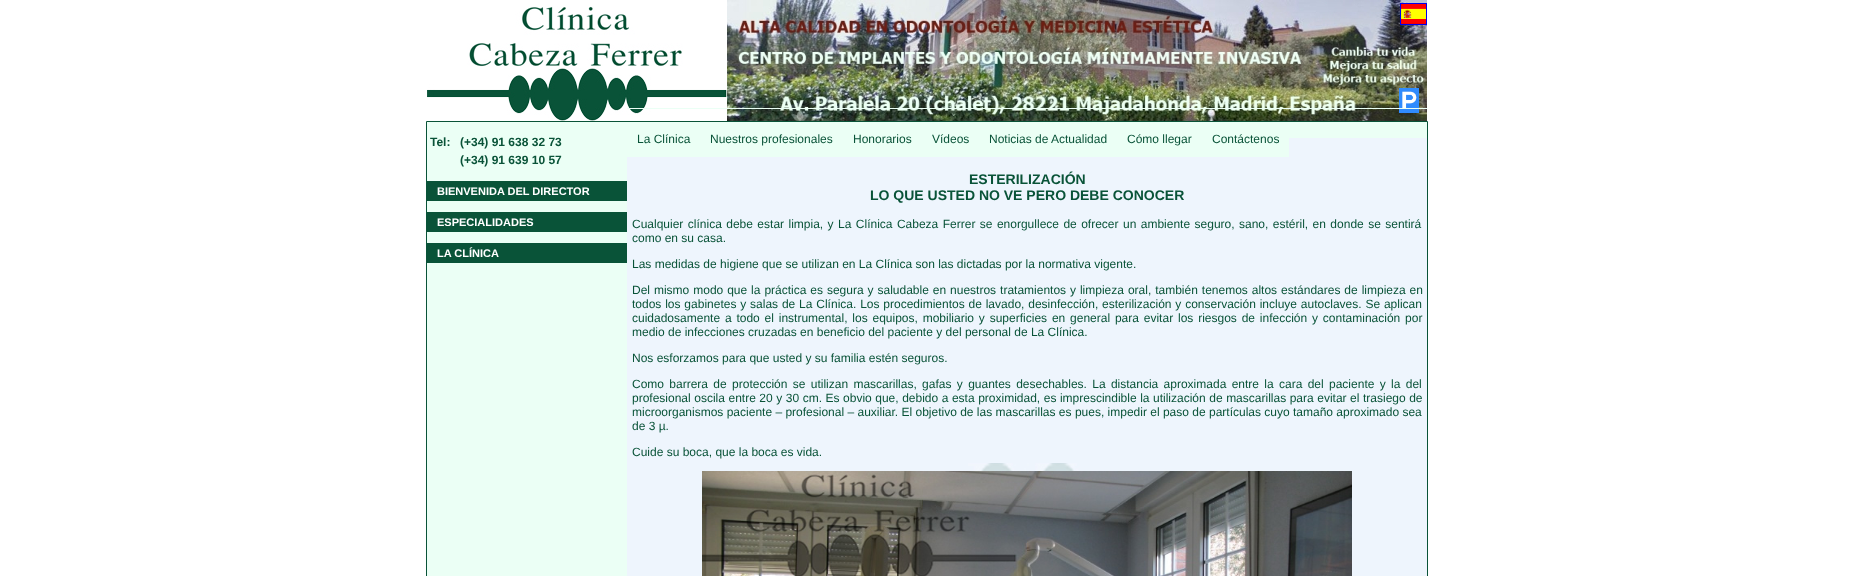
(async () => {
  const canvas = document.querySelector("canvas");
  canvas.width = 1854;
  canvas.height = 576;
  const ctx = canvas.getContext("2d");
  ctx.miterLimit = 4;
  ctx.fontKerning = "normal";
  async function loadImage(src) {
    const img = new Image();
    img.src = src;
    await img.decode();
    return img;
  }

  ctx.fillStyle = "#ffffff";
  ctx.fillRect(0, 0, 1854, 576);
  ctx.drawImage(await loadImage("img/1.png"), 727, 0, 700, 121);
  ctx.drawImage(await loadImage("img/2.png"), 427, 6, 300, 115);
  ctx.strokeStyle = "#0000ee";
  ctx.strokeRect(1400.5, 3.5, 26, 21);
  ctx.drawImage(await loadImage("img/3.png"), 1401, 4, 25, 20);
  ctx.drawImage(await loadImage("img/4.png"), 1399, 88, 20, 25);
  ctx.fillStyle = "#ebfff5";
  ctx.beginPath();
  ctx.rect(426.5, 121.5, 1001, 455);
  ctx.fill();
  ctx.strokeStyle = "#095338";
  ctx.stroke();
  for (const [x, y, w, h, color] of [
    [427, 181, 200, 20, "#095338"],
    [427, 212, 200, 20, "#095338"],
    [427, 243, 200, 20, "#095338"],
    [627, 108, 800, 1, "#ebfff5"],
    [627, 138, 800, 438, "#eef5fd"],
    [627, 138, 662, 19, "#ebfff5"],
  ]) {
    ctx.fillStyle = color;
    ctx.fillRect(x, y, w, h);
  }
  ctx.drawImage(await loadImage("img/5.png"), 714, 463, 625, 8);
  ctx.drawImage(await loadImage("img/6.png"), 702, 471, 650, 105);
  ctx.font = "bold 12px Liberation Sans";
  ctx.fillStyle = "#095338";
  for (const [text, x, y] of [
    ["Tel:", 430, 146],
    ["(+34) 91 638 32 73", 460, 146],
    ["(+34) 91 639 10 57", 460, 164],
  ]) {
    ctx.fillText(text, x, y);
  }
  ctx.font = "bold 11px Liberation Sans";
  ctx.fillStyle = "#ffffff";
  for (const [text, x, y] of [
    ["BIENVENIDA DEL DIRECTOR", 437, 195],
    ["ESPECIALIDADES", 437, 226],
    ["LA CLÍNICA", 437, 257],
  ]) {
    ctx.fillText(text, x, y);
  }
  ctx.font = "12px Liberation Sans";
  ctx.fillStyle = "#095338";
  for (const [text, x, y] of [
    ["La Clínica", 637, 143],
    ["Nuestros profesionales", 710, 143],
    ["Honorarios", 853, 143],
    ["Vídeos", 932, 143],
    ["Noticias de Actualidad", 989, 143],
    ["Cómo llegar", 1127, 143],
    ["Contáctenos", 1212, 143],
  ]) {
    ctx.fillText(text, x, y);
  }
  ctx.font = "bold 14px Liberation Sans";
  ctx.fillText("ESTERILIZACIÓN", 969, 184);
  ctx.fillText("LO QUE USTED NO VE PERO DEBE CONOCER", 870, 200);
  ctx.wordSpacing = "1.1px";
  ctx.font = "12px Liberation Sans";
  ctx.fillText("Cualquier clínica debe estar limpia, y La Clínica Cabeza Ferrer se enorgullece de ofrecer un ambiente seguro, sano, estéril, en donde se sentirá", 632, 228);
  ctx.wordSpacing = "0px";
  ctx.fillText("como en su casa.", 632, 242);
  ctx.fillText("Las medidas de higiene que se utilizan en La Clínica son las dictadas por la normativa vigente.", 632, 268);
  ctx.wordSpacing = "0.6px";
  ctx.fillText("Del mismo modo que la práctica es segura y saludable en nuestros tratamientos y limpieza oral, también tenemos altos estándares de limpieza en", 632, 294);
  ctx.wordSpacing = "0.5px";
  ctx.fillText("todos los gabinetes y salas de La Clínica. Los procedimientos de lavado, desinfección, esterilización y conservación incluye autoclaves. Se aplican", 632, 308);
  ctx.wordSpacing = "1.5px";
  ctx.fillText("cuidadosamente a todo el instrumental, los equipos, mobiliario y superficies en general para evitar los riesgos de infección y contaminación por", 632, 322);
  ctx.wordSpacing = "0px";
  ctx.fillText("medio de infecciones cruzadas en beneficio del paciente y del personal de La Clínica.", 632, 336);
  ctx.fillText("Nos esforzamos para que usted y su familia estén seguros.", 632, 362);
  ctx.wordSpacing = "2px";
  ctx.fillText("Como barrera de protección se utilizan mascarillas, gafas y guantes desechables. La distancia aproximada entre la cara del paciente y la del", 632, 388);
  ctx.wordSpacing = "0.2px";
  ctx.fillText("profesional oscila entre 20 y 30 cm. Es obvio que, debido a esta proximidad, es imprescindible la utilización de mascarillas para evitar el trasiego de", 632, 402);
  ctx.wordSpacing = "0px";
  for (const [text, x, y] of [
    ["microorganismos paciente – profesional – auxiliar. El objetivo de las mascarillas es pues, impedir el paso de partículas cuyo tamaño aproximado sea", 632, 416],
    ["de 3 µ.", 632, 430],
    ["Cuide su boca, que la boca es vida.", 632, 456],
  ]) {
    ctx.fillText(text, x, y);
  }
})();
